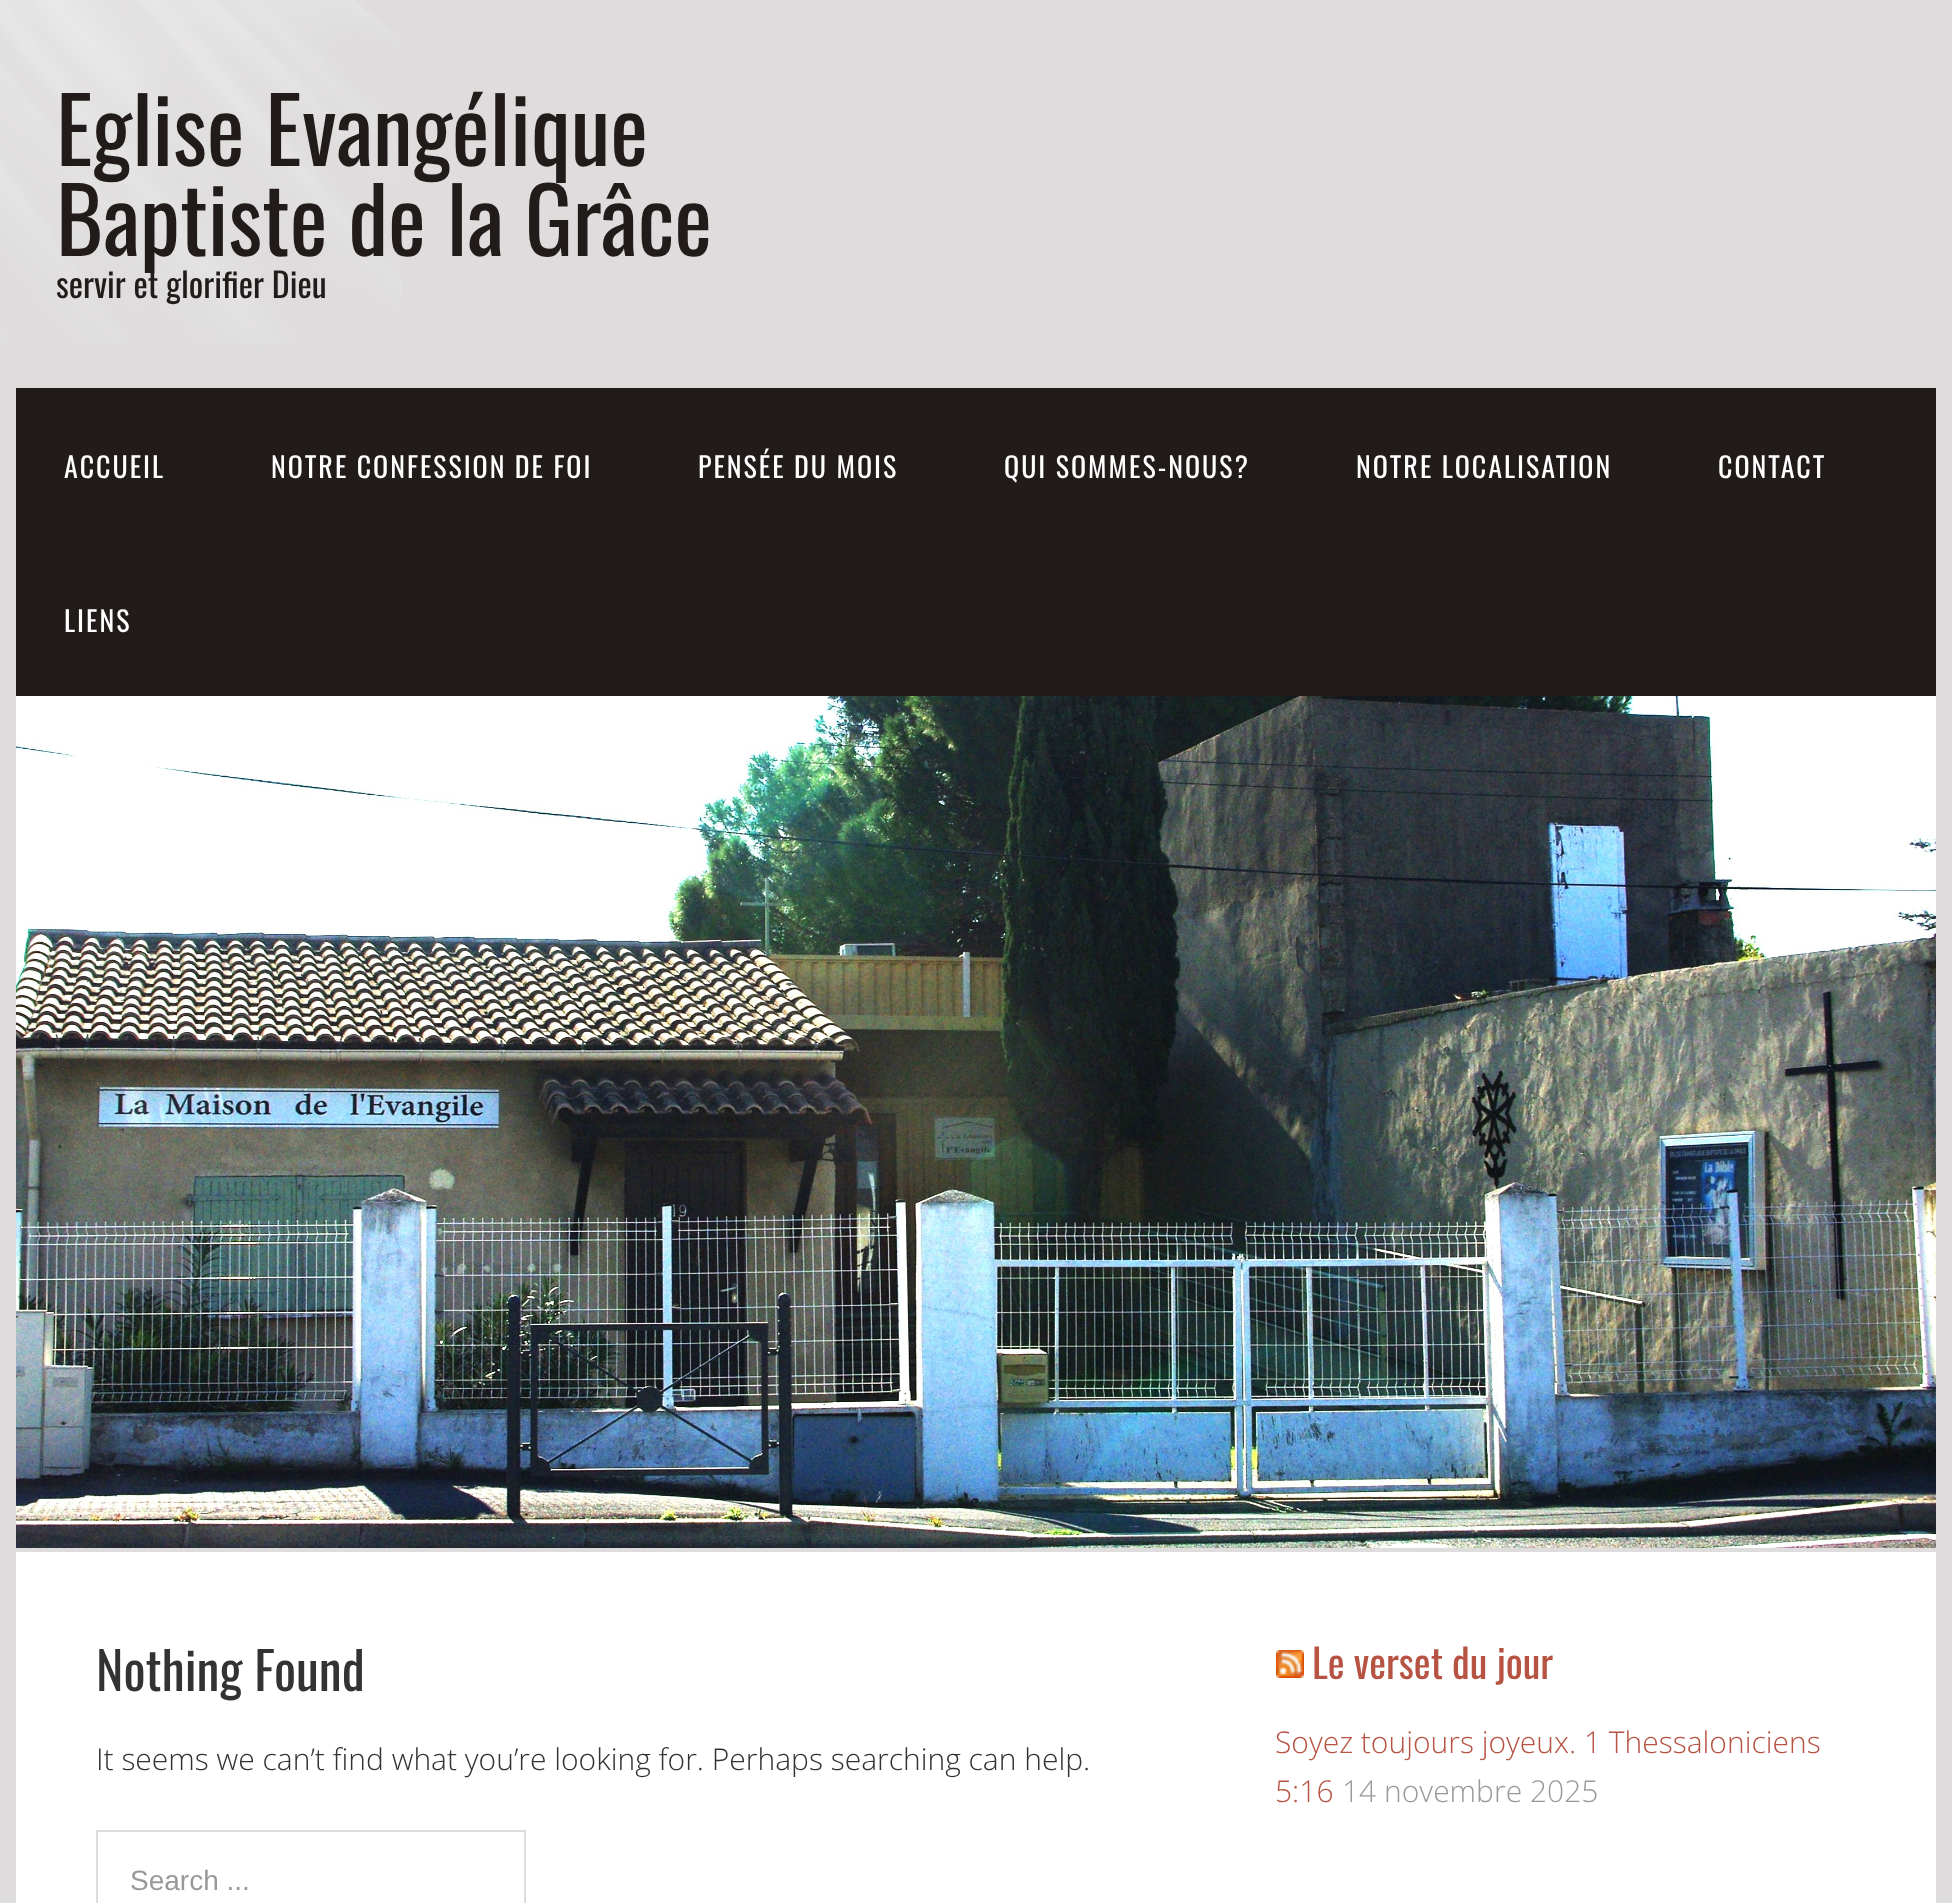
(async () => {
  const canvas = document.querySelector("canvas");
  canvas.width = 1952;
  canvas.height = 1903;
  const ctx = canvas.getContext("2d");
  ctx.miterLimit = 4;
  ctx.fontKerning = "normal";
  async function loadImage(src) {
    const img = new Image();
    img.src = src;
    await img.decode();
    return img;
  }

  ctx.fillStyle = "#dedcdd";
  ctx.fillRect(0, 0, 1952, 1903);
  ctx.drawImage(await loadImage("img/1.png"), 0, 0, 402, 345);
  ctx.fillStyle = "#211b1a";
  ctx.fillRect(16, 388, 1920, 308);
  ctx.drawImage(await loadImage("img/2.png"), 16, 696, 1920, 852);
  ctx.fillStyle = "#ffffff";
  ctx.fillRect(16, 1552, 1920, 351);
  ctx.strokeStyle = "#dddddd";
  ctx.lineWidth = 2;
  ctx.strokeRect(97, 1831, 428, 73);
  ctx.drawImage(await loadImage("img/3.png"), 1276, 1650, 28, 28);
  ctx.font = "90px Oswald";
  ctx.fillStyle = "#211b1a";
  ctx.fillText("Eglise Evangélique", 56, 166);
  ctx.fillText("Baptiste de la Grâce", 56, 256);
  ctx.font = "34px Oswald";
  ctx.fillText("servir et glorifier Dieu", 56, 298);
  ctx.letterSpacing = "2px";
  ctx.font = "28px Oswald";
  ctx.fillStyle = "#ffffff";
  for (const [text, x, y] of [
    ["ACCUEIL", 64, 478],
    ["NOTRE CONFESSION DE FOI", 271, 478],
    ["PENSÉE DU MOIS", 698, 478],
    ["QUI SOMMES-NOUS?", 1004, 478],
    ["NOTRE LOCALISATION", 1356, 478],
    ["CONTACT", 1718, 478],
    ["LIENS", 64, 632],
  ]) {
    ctx.fillText(text, x, y);
  }
  ctx.letterSpacing = "0px";
  ctx.font = "52px Oswald";
  ctx.fillStyle = "#333333";
  ctx.fillText("Nothing Found", 96, 1691);
  ctx.font = "300 30px Open Sans";
  ctx.fillText("It seems we can’t find what you’re looking for. Perhaps searching can help.", 96, 1770);
  ctx.font = "28px Liberation Sans";
  ctx.fillStyle = "#999999";
  ctx.fillText("Search ...", 130, 1890);
  ctx.font = "40px Oswald";
  ctx.fillStyle = "#b75343";
  ctx.fillText("Le verset du jour", 1312, 1679);
  ctx.font = "300 30px Open Sans";
  ctx.fillText("Soyez toujours joyeux. 1 Thessaloniciens", 1275, 1753);
  ctx.fillText("5:16", 1275, 1802);
  ctx.fillStyle = "#999999";
  ctx.fillText("14 novembre 2025", 1342, 1802);
})();
